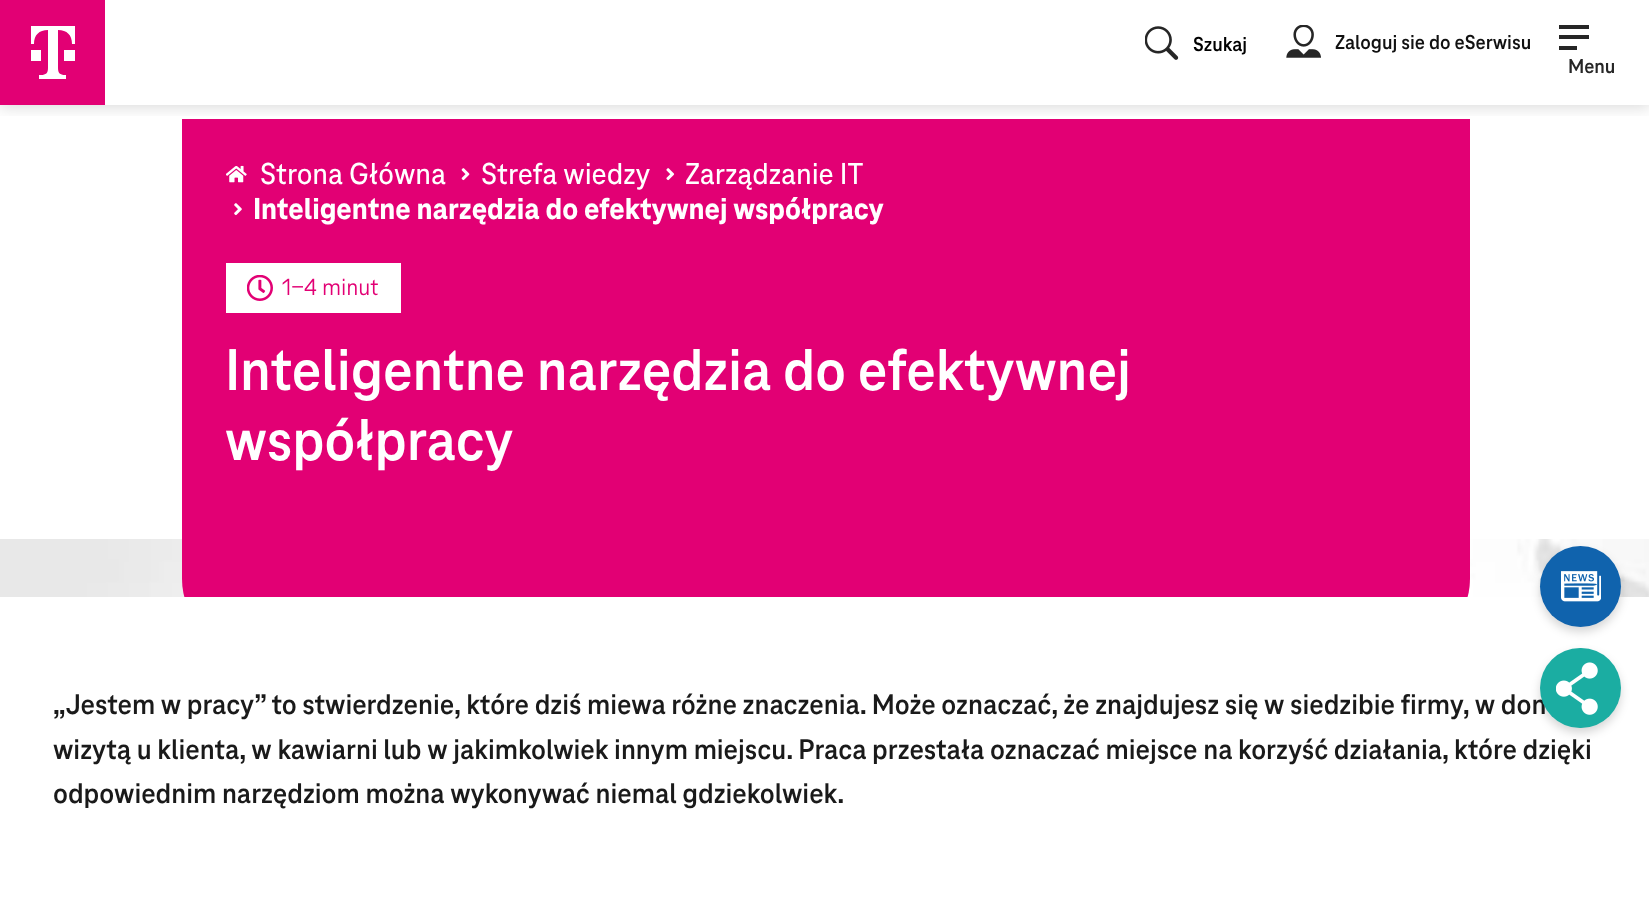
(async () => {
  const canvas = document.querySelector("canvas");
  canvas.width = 1649;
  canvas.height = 903;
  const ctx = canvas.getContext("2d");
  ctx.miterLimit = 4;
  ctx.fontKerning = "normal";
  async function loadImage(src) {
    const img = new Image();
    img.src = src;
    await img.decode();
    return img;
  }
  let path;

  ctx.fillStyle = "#ffffff";
  ctx.fillRect(0, 0, 1649, 903);
  ctx.drawImage(await loadImage("img/8.png"), 0, 539, 1649, 58);
  ctx.fillStyle = "#e20074";
  ctx.beginPath();
  ctx.roundRect(182, 119, 1288, 530, [0, 0, 70, 70]);
  ctx.fill();
  ctx.save();
  ctx.beginPath();
  ctx.rect(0, 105, 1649, 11);
  ctx.clip();
  ctx.fillStyle = "rgba(0, 0, 0, 0.15)";
  ctx.filter = "blur(8px)";
  ctx.beginPath();
  ctx.rect(0, 2, 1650, 105);
  ctx.fill();
  ctx.filter = "none";
  ctx.restore();
  ctx.fillRect(0, 0, 105, 105);
  ctx.fillStyle = "#ffffff";
  path = new Path2D("M41 61H31V50H41ZM31 26V44H34C34 35 39 30 48 30V68C48 73 46 75 41 75H39V79H66V75H65C60 75 58 73 58 68V30C67 30 72 35 72 44H75V26ZM64 61H75V50H64Z");
  ctx.fill(path);
  ctx.drawImage(await loadImage("img/1.png"), 1145, 26, 34, 34);
  ctx.drawImage(await loadImage("img/2.png"), 1286, 25, 35, 33);
  for (const [x, y, w, h, color] of [
    [1559, 25, 30, 4, "#262626"],
    [1559, 35, 30, 4, "#262626"],
    [1559, 46, 18, 4, "#262626"],
  ]) {
    ctx.fillStyle = color;
    ctx.fillRect(x, y, w, h);
  }
  ctx.drawImage(await loadImage("img/3.png"), 226, 165, 21, 18);
  ctx.drawImage(await loadImage("img/4.png"), 461, 168, 9, 13);
  ctx.drawImage(await loadImage("img/5.png"), 666, 168, 9, 13);
  ctx.drawImage(await loadImage("img/6.png"), 234, 203, 8, 13);
  ctx.fillStyle = "#ffffff";
  ctx.fillRect(226, 263, 175, 50);
  ctx.drawImage(await loadImage("img/7.png"), 247, 275, 26, 26);
  ctx.fillRect(184, 597, 1284, 52);
  ctx.fillStyle = "rgba(0, 0, 0, 0.16)";
  ctx.filter = "blur(5px)";
  ctx.beginPath();
  ctx.roundRect(1540, 551, 81, 81, 40.5);
  ctx.fill();
  ctx.filter = "none";
  ctx.fillStyle = "#1063ad";
  ctx.beginPath();
  ctx.arc(1580.5, 586.5, 40.5, 0, Math.PI * 2);
  ctx.fill();
  ctx.drawImage(await loadImage("img/9.png"), 1561, 571, 40, 31);
  ctx.fillStyle = "rgba(0, 0, 0, 0.16)";
  ctx.filter = "blur(5px)";
  ctx.beginPath();
  ctx.roundRect(1540, 653, 81, 80, 40);
  ctx.fill();
  ctx.filter = "none";
  ctx.font = "bold 21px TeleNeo";
  ctx.fillStyle = "#000000";
  ctx.fillText("Szukaj", 1193, 51);
  ctx.fillStyle = "#111111";
  ctx.fillText("Zaloguj sie do eSerwisu", 1335, 49);
  ctx.fillStyle = "#262626";
  ctx.fillText("Menu", 1568, 73);
  ctx.font = "500 31.5px TeleNeo";
  ctx.fillStyle = "#ffffff";
  for (const [text, x, y] of [
    ["Strona Główna", 260, 184],
    ["Strefa wiedzy", 481, 184],
    ["Zarządzanie IT", 685, 184],
  ]) {
    ctx.fillText(text, x, y);
  }
  ctx.font = "800 31.5px TeleNeo";
  ctx.fillText("Inteligentne narzędzia do efektywnej współpracy", 253, 219);
  ctx.font = "24.5px TeleNeo";
  ctx.fillStyle = "#e20074";
  ctx.fillText("1-4 minut", 282, 295);
  ctx.font = "bold 61.25px TeleNeo";
  ctx.fillStyle = "#ffffff";
  ctx.fillText("Inteligentne narzędzia do efektywnej", 225, 390);
  ctx.fillText("współpracy", 225, 460);
  ctx.font = "bold 29.75px TeleNeo";
  ctx.fillStyle = "#1a1a1a";
  for (const [text, x, y] of [
    ["„Jestem w pracy” to stwierdzenie, które dziś miewa różne znaczenia. Może oznaczać, że znajdujesz się w siedzibie firmy, w dom", 53, 714],
    ["wizytą u klienta, w kawiarni lub w jakimkolwiek innym miejscu. Praca przestała oznaczać miejsce na korzyść działania, które dzięki", 53, 759],
    ["odpowiednim narzędziom można wykonywać niemal gdziekolwiek.", 53, 803],
  ]) {
    ctx.fillText(text, x, y);
  }
  ctx.fillStyle = "#1bada2";
  ctx.beginPath();
  ctx.roundRect(1540, 648, 81, 80, 40);
  ctx.fill();
  ctx.drawImage(await loadImage("img/10.png"), 1556, 662, 42, 53);
})();
